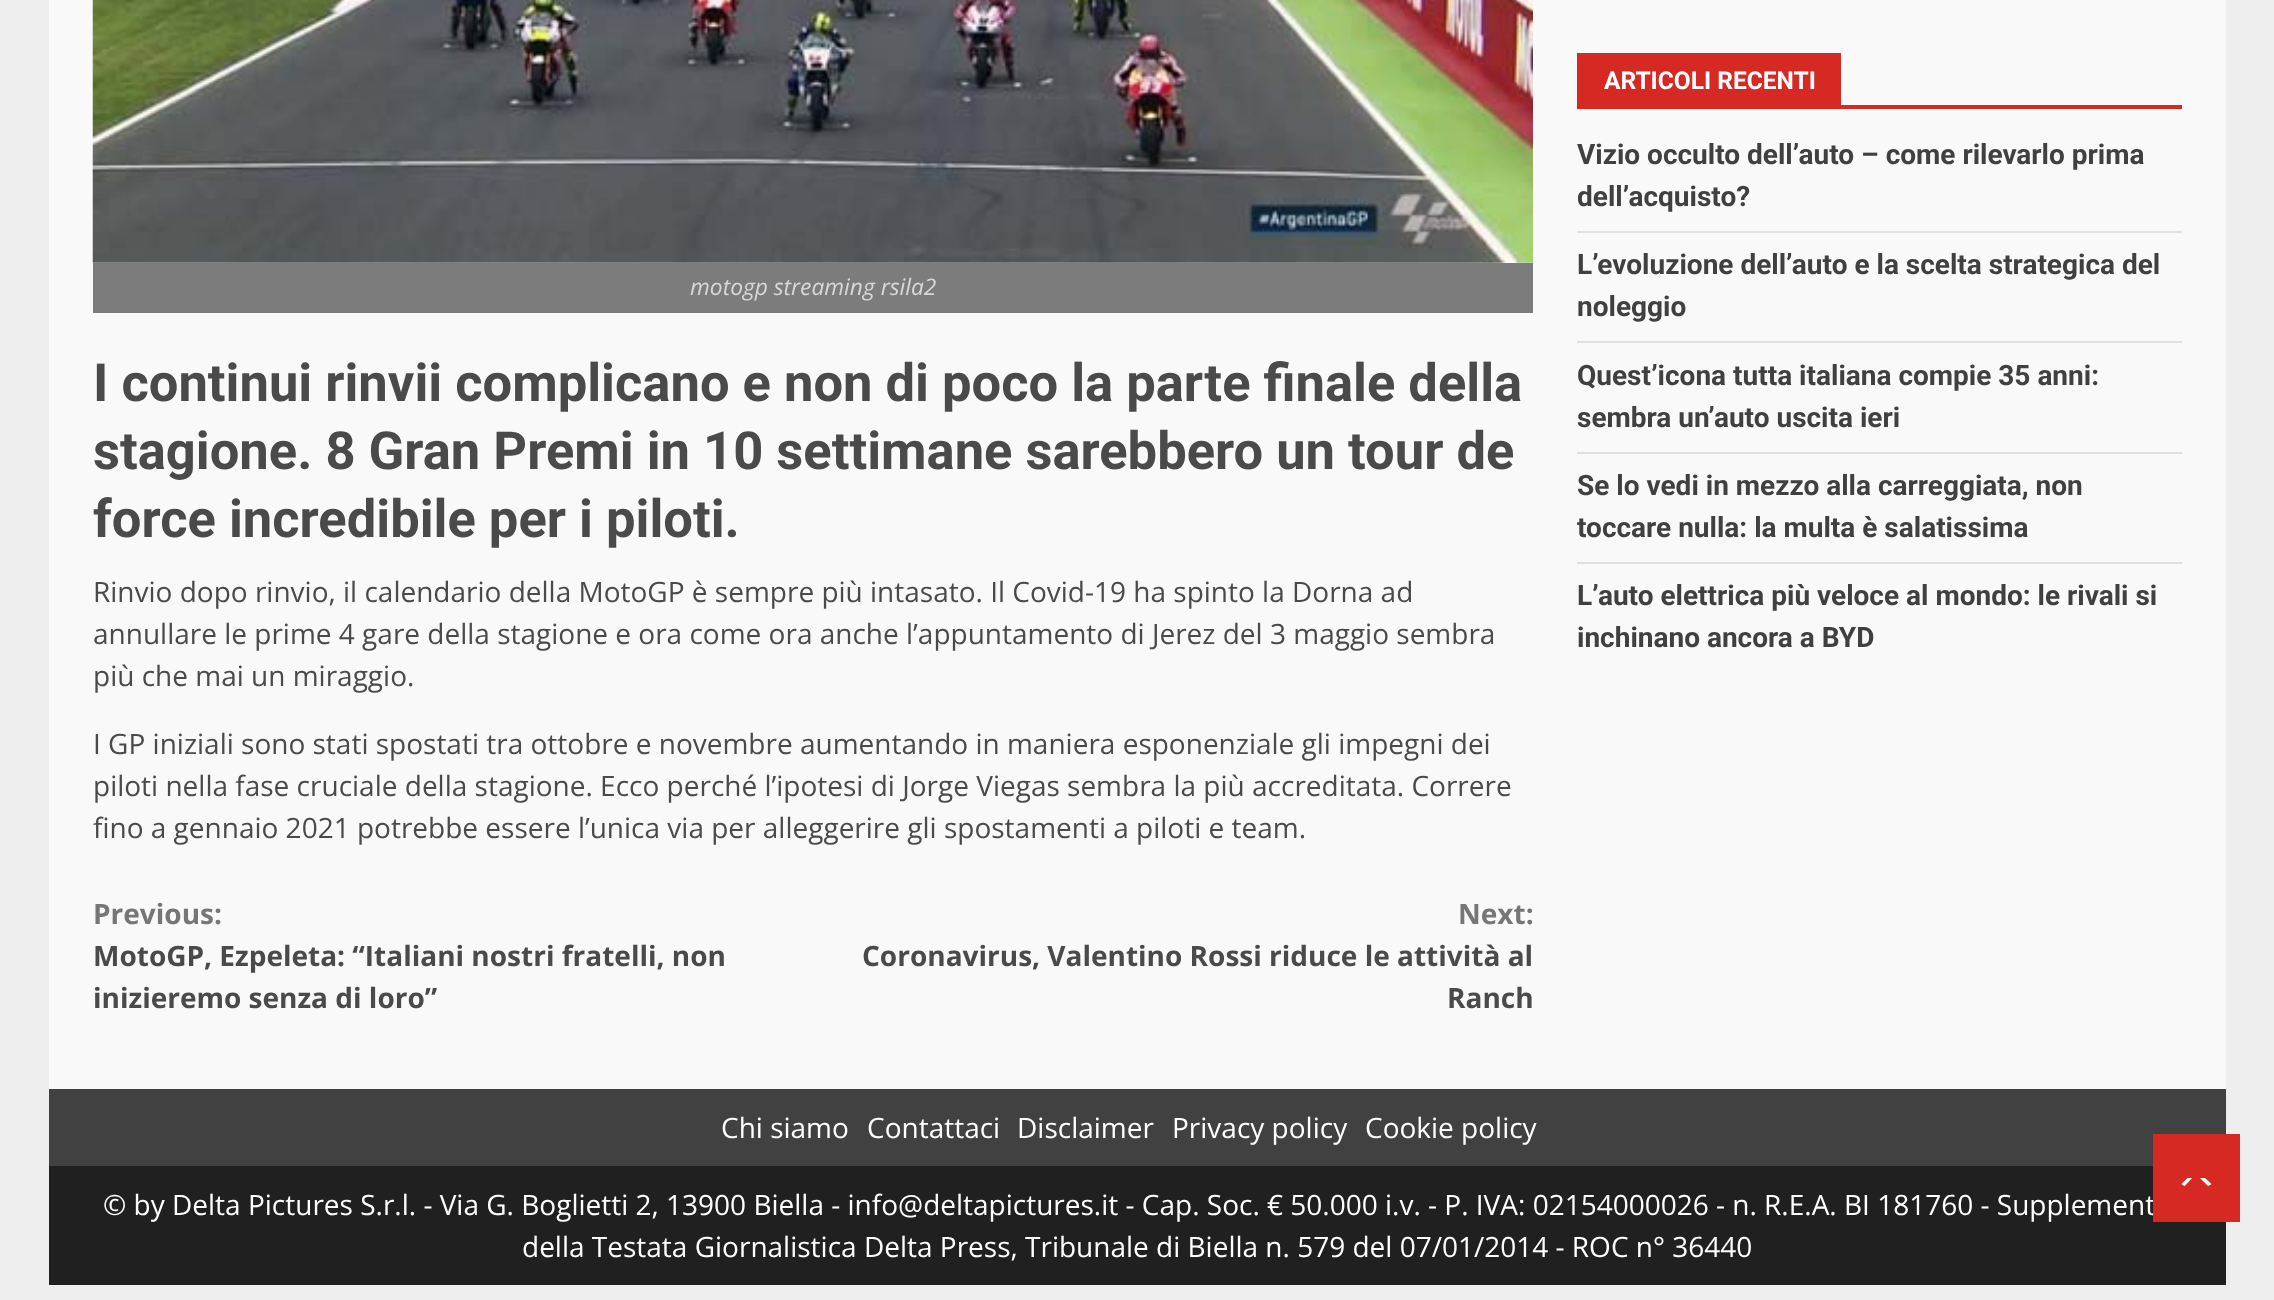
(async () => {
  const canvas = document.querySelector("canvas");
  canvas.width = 2274;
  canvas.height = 1300;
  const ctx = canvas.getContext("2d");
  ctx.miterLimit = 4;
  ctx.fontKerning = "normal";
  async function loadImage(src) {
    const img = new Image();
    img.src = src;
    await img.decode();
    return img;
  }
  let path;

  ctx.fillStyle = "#eeeeee";
  ctx.fillRect(0, 0, 2274, 1300);
  ctx.fillStyle = "#f9f9f9";
  ctx.fillRect(49, 0, 2177, 1089);
  ctx.drawImage(await loadImage("img/1.png"), 92, 0, 1441, 263);
  for (const [x, y, w, h, color] of [
    [93, 263, 1440, 50, "#7c7c7c"],
    [1577, 105, 605, 4, "#d72924"],
    [1577, 53, 264, 52, "#d72924"],
    [1577, 231, 605, 2, "#e0e0e0"],
    [1577, 341, 605, 2, "#e0e0e0"],
    [1577, 452, 605, 2, "#e0e0e0"],
    [1577, 562, 605, 2, "#e0e0e0"],
    [49, 1166, 2177, 119, "#202020"],
    [49, 1089, 2177, 77, "#414141"],
  ]) {
    ctx.fillStyle = color;
    ctx.fillRect(x, y, w, h);
  }
  ctx.font = "italic 22.75px Open Sans";
  ctx.fillStyle = "#d8d8d8";
  ctx.fillText("motogp streaming rsila2", 690, 295);
  ctx.font = "bold 52.5px Roboto";
  ctx.fillStyle = "#4a4a4a";
  for (const [text, x, y] of [
    ["I continui rinvii complicano e non di poco la parte finale della", 93, 401],
    ["stagione. 8 Gran Premi in 10 settimane sarebbero un tour de", 93, 469],
    ["force incredibile per i piloti.", 93, 537],
  ]) {
    ctx.fillText(text, x, y);
  }
  ctx.font = "28px Open Sans";
  for (const [text, x, y] of [
    ["Rinvio dopo rinvio, il calendario della MotoGP è sempre più intasato. Il Covid-19 ha spinto la Dorna ad", 93, 602],
    ["annullare le prime 4 gare della stagione e ora come ora anche l’appuntamento di Jerez del 3 maggio sembra", 93, 644],
    ["più che mai un miraggio.", 93, 686],
    ["I GP iniziali sono stati spostati tra ottobre e novembre aumentando in maniera esponenziale gli impegni dei", 93, 754],
    ["piloti nella fase cruciale della stagione. Ecco perché l’ipotesi di Jorge Viegas sembra la più accreditata. Correre", 93, 796],
    ["fino a gennaio 2021 potrebbe essere l’unica via per alleggerire gli spostamenti a piloti e team.", 93, 838],
  ]) {
    ctx.fillText(text, x, y);
  }
  ctx.font = "bold 28px Open Sans";
  ctx.fillStyle = "#767676";
  ctx.fillText("Previous:", 93, 924);
  ctx.fillStyle = "#4a4a4a";
  ctx.fillText("MotoGP, Ezpeleta: “Italiani nostri fratelli, non", 93, 966);
  ctx.fillText("inizieremo senza di loro”", 93, 1008);
  ctx.fillStyle = "#767676";
  ctx.fillText("Next:", 1458, 924);
  ctx.fillStyle = "#4a4a4a";
  ctx.fillText("Coronavirus, Valentino Rossi riduce le attività al", 862, 966);
  ctx.fillText("Ranch", 1447, 1008);
  ctx.font = "bold 24.5px Roboto";
  ctx.fillStyle = "#ffffff";
  ctx.fillText("ARTICOLI RECENTI", 1604, 89);
  ctx.font = "bold 28px Roboto";
  ctx.fillStyle = "#404040";
  for (const [text, x, y] of [
    ["Vizio occulto dell’auto – come rilevarlo prima", 1577, 164],
    ["dell’acquisto?", 1577, 206],
    ["L’evoluzione dell’auto e la scelta strategica del", 1577, 274],
    ["noleggio", 1577, 316],
    ["Quest’icona tutta italiana compie 35 anni:", 1577, 385],
    ["sembra un’auto uscita ieri", 1577, 427],
    ["Se lo vedi in mezzo alla carreggiata, non", 1577, 495],
    ["toccare nulla: la multa è salatissima", 1577, 537],
    ["L’auto elettrica più veloce al mondo: le rivali si", 1577, 605],
    ["inchinano ancora a BYD", 1577, 647],
  ]) {
    ctx.fillText(text, x, y);
  }
  ctx.font = "28px Open Sans";
  ctx.fillStyle = "#ffffff";
  for (const [text, x, y] of [
    ["Chi siamo", 721, 1138],
    ["Contattaci", 867, 1138],
    ["Disclaimer", 1017, 1138],
    ["Privacy policy", 1172, 1138],
    ["Cookie policy", 1365, 1138],
    ["© by Delta Pictures S.r.l. - Via G. Boglietti 2, 13900 Biella - info@deltapictures.it - Cap. Soc. € 50.000 i.v. - P. IVA: 02154000026 - n. R.E.A. BI 181760 - Supplement", 103, 1215],
    ["della Testata Giornalistica Delta Press, Tribunale di Biella n. 579 del 07/01/2014 - ROC n° 36440", 522, 1257],
  ]) {
    ctx.fillText(text, x, y);
  }
  ctx.fillStyle = "#d72924";
  ctx.fillRect(2153, 1134, 87, 88);
  ctx.fillStyle = "#ffffff";
  path = new Path2D("M2187.5 1186.5H2205C2207.5 1186.5 2209.5 1185.5 2211.5 1184L2205 1178H2187.5L2181.5 1184C2183 1185.5 2185 1186.5 2187.5 1186.5Z");
  ctx.fill(path);
  ctx.fillStyle = "#d72924";
  path = new Path2D("M2214 1192H2179L2196 1174Z");
  ctx.fill(path);
})();
